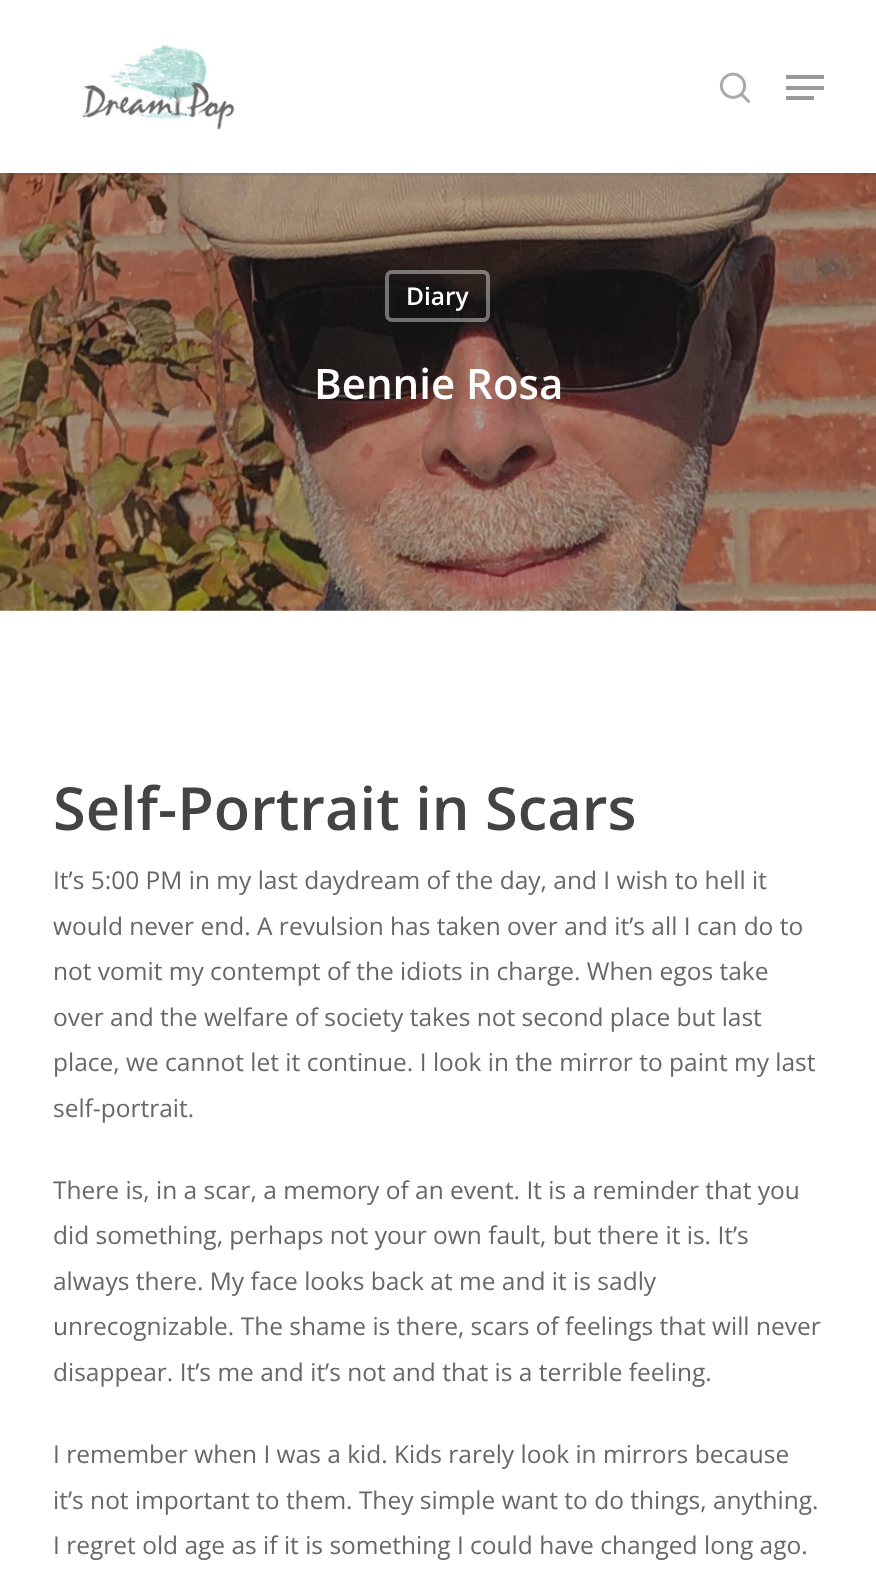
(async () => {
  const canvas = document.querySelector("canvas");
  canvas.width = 876;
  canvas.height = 1585;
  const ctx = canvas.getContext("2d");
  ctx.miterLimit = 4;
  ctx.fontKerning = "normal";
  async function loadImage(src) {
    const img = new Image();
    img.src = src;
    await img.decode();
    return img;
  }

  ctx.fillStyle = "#ffffff";
  ctx.fillRect(0, 0, 876, 1585);
  ctx.drawImage(await loadImage("img/3.png"), 0, 173, 876, 438);
  ctx.save();
  ctx.beginPath();
  ctx.rect(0, 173, 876, 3);
  ctx.clip();
  ctx.fillStyle = "rgba(0, 0, 0, 0.22)";
  ctx.filter = "blur(2.5px)";
  ctx.beginPath();
  ctx.rect(0, 0, 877, 173);
  ctx.fill();
  ctx.filter = "none";
  ctx.restore();
  ctx.drawImage(await loadImage("img/1.png"), 81, 44, 154, 86);
  ctx.drawImage(await loadImage("img/2.png"), 719, 72, 31, 31);
  for (const [x, y, w, h, color] of [
    [786, 75, 38, 4, "#999999"],
    [786, 96, 28, 4, "#999999"],
    [786, 86, 38, 4, "#999999"],
  ]) {
    ctx.fillStyle = color;
    ctx.fillRect(x, y, w, h);
  }
  ctx.beginPath();
  ctx.roundRect(387, 272, 101, 48, 5);
  ctx.strokeStyle = "rgba(255, 255, 255, 0.4)";
  ctx.lineWidth = 4;
  ctx.stroke();
  ctx.font = "600 24.5px Open Sans";
  ctx.fillStyle = "#ffffff";
  ctx.fillText("Diary", 406, 305);
  ctx.font = "600 42px Open Sans";
  ctx.fillText("Bennie Rosa", 314, 399);
  ctx.font = "600 59.5px Open Sans";
  ctx.fillStyle = "#444444";
  ctx.fillText("Self-Portrait in Scars", 53, 830);
  ctx.font = "24.5px Open Sans";
  ctx.fillStyle = "#676767";
  for (const [text, x, y] of [
    ["It’s 5:00 PM in my last daydream of the day, and I wish to hell it", 53, 889],
    ["would never end. A revulsion has taken over and it’s all I can do to", 53, 935],
    ["not vomit my contempt of the idiots in charge. When egos take", 53, 980],
    ["over and the welfare of society takes not second place but last", 53, 1026],
    ["place, we cannot let it continue. I look in the mirror to paint my last", 53, 1071],
    ["self-portrait.", 53, 1117],
    ["There is, in a scar, a memory of an event. It is a reminder that you", 53, 1199],
    ["did something, perhaps not your own fault, but there it is. It’s", 53, 1244],
    ["always there. My face looks back at me and it is sadly", 53, 1290],
    ["unrecognizable. The shame is there, scars of feelings that will never", 53, 1335],
    ["disappear. It’s me and it’s not and that is a terrible feeling.", 53, 1381],
    ["I remember when I was a kid. Kids rarely look in mirrors because", 53, 1463],
    ["it’s not important to them. They simple want to do things, anything.", 53, 1509],
    ["I regret old age as if it is something I could have changed long ago.", 53, 1554],
  ]) {
    ctx.fillText(text, x, y);
  }
})();
